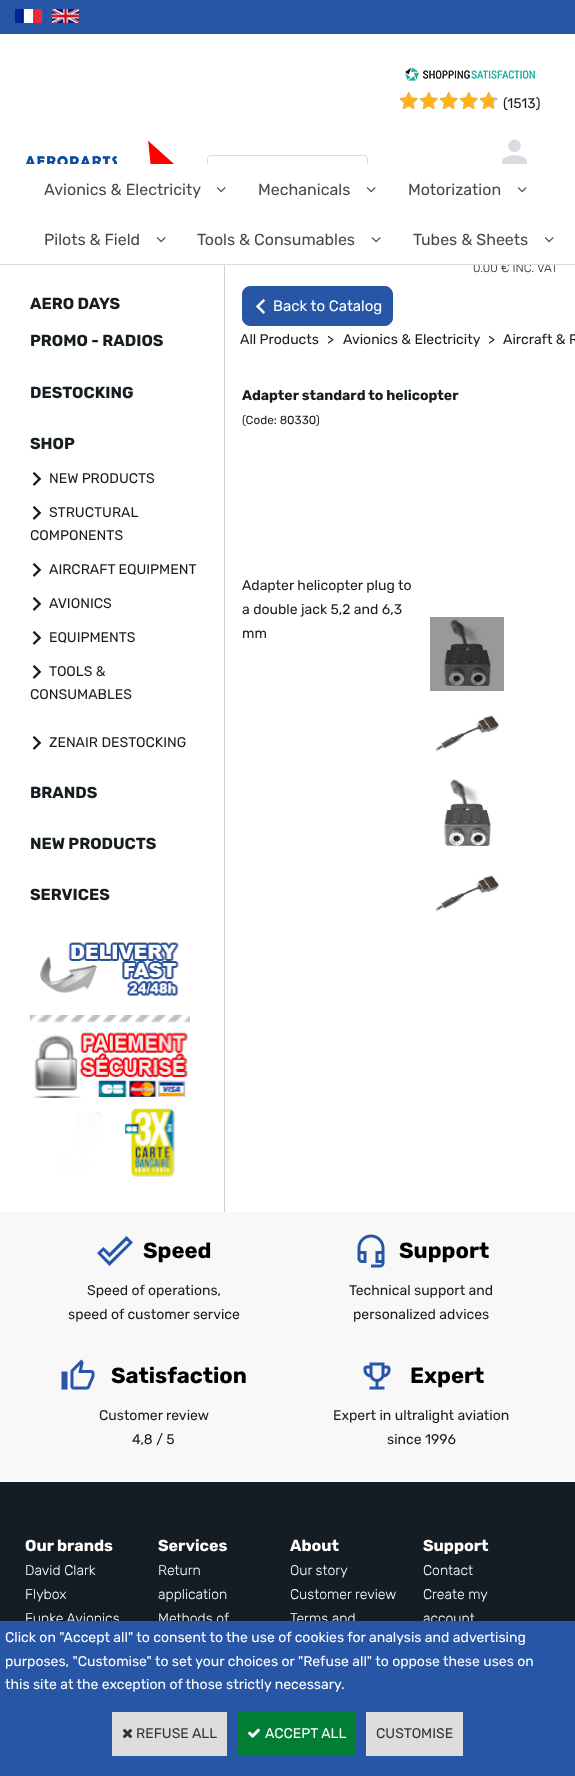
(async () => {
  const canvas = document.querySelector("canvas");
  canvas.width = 575;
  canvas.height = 1776;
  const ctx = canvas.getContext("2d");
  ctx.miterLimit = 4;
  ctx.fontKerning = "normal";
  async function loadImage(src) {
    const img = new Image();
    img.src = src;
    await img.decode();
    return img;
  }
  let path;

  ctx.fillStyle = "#ffffff";
  ctx.fillRect(0, 0, 575, 1776);
  ctx.fillStyle = "#2756a6";
  ctx.fillRect(0, 0, 575, 34);
  ctx.drawImage(await loadImage("img/1.png"), 15, 9, 27, 14);
  ctx.drawImage(await loadImage("img/2.png"), 52, 9, 27, 14);
  ctx.drawImage(await loadImage("img/3.png"), 26, 140, 148, 24);
  ctx.drawImage(await loadImage("img/4.png"), 405, 67, 130, 14);
  ctx.drawImage(await loadImage("img/5.png"), 400, 92, 98, 17);
  ctx.drawImage(await loadImage("img/6.png"), 400, 92, 94, 17);
  ctx.drawImage(await loadImage("img/7.png"), 502, 139, 25, 25);
  ctx.fillStyle = "#d8dce1";
  path = new Path2D("M211 155H315V205H211C209 205 207 203 207 201V159C207 157 209 155 211 155ZM211 156H315V204H211C209 204 208 203 208 201V159C208 157 209 156 211 156Z");
  ctx.fill(path, "evenodd");
  path = new Path2D("M315 155H364C366 155 368 157 368 159V201C368 203 366 205 364 205H315ZM315 156H364C366 156 367 157 367 159V201C367 203 366 204 364 204H315Z");
  ctx.fill(path, "evenodd");
  ctx.drawImage(await loadImage("img/8.png"), 156, 237, 10, 6);
  ctx.fillStyle = "#d0d0d0";
  ctx.fillRect(224, 265, 1, 947);
  ctx.drawImage(await loadImage("img/9.png"), 32, 472, 10, 14);
  ctx.drawImage(await loadImage("img/9.png"), 32, 506, 10, 14);
  ctx.drawImage(await loadImage("img/9.png"), 32, 563, 10, 14);
  ctx.drawImage(await loadImage("img/9.png"), 32, 597, 10, 14);
  ctx.drawImage(await loadImage("img/9.png"), 32, 631, 10, 14);
  ctx.drawImage(await loadImage("img/9.png"), 32, 665, 10, 14);
  ctx.drawImage(await loadImage("img/9.png"), 32, 736, 10, 14);
  ctx.drawImage(await loadImage("img/10.png"), 40, 942, 139, 54);
  ctx.drawImage(await loadImage("img/11.png"), 30, 1015, 160, 162);
  ctx.fillStyle = "#2756a6";
  ctx.beginPath();
  ctx.roundRect(242.5, 286.5, 150, 39, 7.5);
  ctx.fill();
  ctx.strokeStyle = "#2756a6";
  ctx.stroke();
  ctx.drawImage(await loadImage("img/12.png"), 256, 299, 9, 15);
  ctx.drawImage(await loadImage("img/13.png"), 430, 617, 74, 74);
  ctx.drawImage(await loadImage("img/14.png"), 433, 715, 66, 37);
  ctx.drawImage(await loadImage("img/15.png"), 444, 779, 47, 68);
  ctx.drawImage(await loadImage("img/14.png"), 433, 875, 66, 37);
  ctx.fillStyle = "#151d24";
  ctx.fillRect(0, 1482, 575, 139);
  ctx.fillStyle = "#f8f8f8";
  ctx.fillRect(0, 1212, 575, 270);
  ctx.fillStyle = "#2756a6";
  path = new Path2D("M126.5 1240.5L129 1242.5L109.5 1261.5L101 1253L103.5 1251L109.5 1257.5L126.5 1240.5M126.5 1236L109.5 1253L103.5 1247L97 1253L109.5 1266L133 1242.5Z");
  ctx.fill(path);
  ctx.drawImage(await loadImage("img/16.png"), 357, 1234, 28, 34);
  ctx.drawImage(await loadImage("img/17.png"), 61, 1359, 34, 31);
  ctx.drawImage(await loadImage("img/18.png"), 363, 1362, 28, 28);
  ctx.font = "14px Rubik";
  ctx.fillStyle = "#151d20";
  ctx.fillText("(1513)", 503, 108);
  ctx.font = "300 12px Rubik";
  ctx.fillText("0.00 € INC. VAT", 473, 272);
  ctx.fillStyle = "#ffffff";
  ctx.fillRect(207, 164, 351, 100);
  ctx.fillStyle = "#d8dce1";
  ctx.fillRect(0, 264, 575, 1);
  ctx.font = "16px Rubik";
  ctx.fillStyle = "#4a4a4a";
  ctx.fillText("Avionics & Electricity", 44, 195);
  ctx.drawImage(await loadImage("img/8.png"), 216, 187, 10, 6);
  ctx.fillText("Mechanicals", 258, 195);
  ctx.drawImage(await loadImage("img/8.png"), 366, 187, 10, 6);
  ctx.fillText("Motorization", 408, 195);
  ctx.drawImage(await loadImage("img/8.png"), 517, 187, 10, 6);
  ctx.fillText("Pilots & Field", 44, 245);
  ctx.fillText("Tools & Consumables", 197, 245);
  ctx.drawImage(await loadImage("img/8.png"), 371, 237, 10, 6);
  ctx.fillText("Tubes & Sheets", 413, 245);
  ctx.drawImage(await loadImage("img/8.png"), 544, 237, 10, 6);
  ctx.font = "bold 16px Rubik";
  ctx.fillStyle = "#151d20";
  for (const [text, x, y] of [
    ["AERO DAYS", 30, 309],
    ["PROMO - RADIOS", 30, 346],
    ["DESTOCKING", 30, 398],
    ["SHOP", 30, 449],
  ]) {
    ctx.fillText(text, x, y);
  }
  ctx.font = "14px Rubik";
  for (const [text, x, y] of [
    ["NEW PRODUCTS", 49, 483],
    ["STRUCTURAL", 49, 517],
    ["COMPONENTS", 30, 540],
    ["AIRCRAFT EQUIPMENT", 49, 574],
    ["AVIONICS", 49, 608],
    ["EQUIPMENTS", 49, 642],
    ["TOOLS &", 49, 676],
    ["CONSUMABLES", 30, 699],
    ["ZENAIR DESTOCKING", 49, 747],
  ]) {
    ctx.fillText(text, x, y);
  }
  ctx.font = "bold 16px Rubik";
  for (const [text, x, y] of [
    ["BRANDS", 30, 798],
    ["NEW PRODUCTS", 30, 849],
    ["SERVICES", 30, 900],
  ]) {
    ctx.fillText(text, x, y);
  }
  ctx.font = "15px Rubik";
  ctx.fillStyle = "#ffffff";
  ctx.fillText("Back to Catalog", 273, 311);
  ctx.font = "14px Rubik";
  ctx.fillStyle = "#151d20";
  for (const [text, x, y] of [
    ["All Products", 240, 344],
    [">", 327, 344],
    ["Avionics & Electricity", 343, 344],
    [">", 488, 344],
    ["Aircraft & R", 503, 344],
  ]) {
    ctx.fillText(text, x, y);
  }
  ctx.font = "bold 14px Rubik";
  ctx.fillText("Adapter standard to helicopter", 242, 400);
  ctx.font = "11.75px Rubik";
  ctx.fillText("(Code: 80330)", 242, 424);
  ctx.font = "14px Rubik";
  for (const [text, x, y] of [
    ["Adapter helicopter plug to", 242, 590],
    ["a double jack 5,2 and 6,3", 242, 614],
    ["mm", 242, 638],
  ]) {
    ctx.fillText(text, x, y);
  }
  ctx.font = "bold 22px Rubik";
  ctx.fillStyle = "#000000";
  ctx.fillText("Speed", 143, 1258);
  ctx.font = "14px Rubik";
  ctx.fillStyle = "#151d20";
  ctx.fillText("Speed of operations,", 87, 1295);
  ctx.fillText("speed of customer service", 68, 1319);
  ctx.font = "bold 22px Rubik";
  ctx.fillStyle = "#000000";
  ctx.fillText("Support", 399, 1258);
  ctx.font = "14px Rubik";
  ctx.fillStyle = "#151d20";
  ctx.fillText("Technical support and", 349, 1295);
  ctx.fillText("personalized advices", 353, 1319);
  ctx.font = "bold 22px Rubik";
  ctx.fillStyle = "#000000";
  ctx.fillText("Satisfaction", 111, 1383);
  ctx.font = "14px Rubik";
  ctx.fillStyle = "#151d20";
  ctx.fillText("Customer review", 99, 1420);
  ctx.fillText("4,8 / 5", 132, 1444);
  ctx.font = "bold 22px Rubik";
  ctx.fillStyle = "#000000";
  ctx.fillText("Expert", 410, 1383);
  ctx.font = "14px Rubik";
  ctx.fillStyle = "#151d20";
  ctx.fillText("Expert in ultralight aviation", 333, 1420);
  ctx.fillText("since 1996", 387, 1444);
  ctx.font = "bold 16px Rubik";
  ctx.fillStyle = "#ffffff";
  ctx.fillText("Our brands", 25, 1551);
  ctx.font = "300 14px Rubik";
  for (const [text, x, y] of [
    ["David Clark", 25, 1575],
    ["Flybox", 25, 1599],
    ["Funke Avionics", 25, 1623],
  ]) {
    ctx.fillText(text, x, y);
  }
  ctx.font = "bold 16px Rubik";
  ctx.fillText("Services", 158, 1551);
  ctx.font = "300 14px Rubik";
  for (const [text, x, y] of [
    ["Return", 158, 1575],
    ["application", 158, 1599],
    ["Methods of", 158, 1623],
  ]) {
    ctx.fillText(text, x, y);
  }
  ctx.font = "bold 16px Rubik";
  ctx.fillText("About", 290, 1551);
  ctx.font = "300 14px Rubik";
  for (const [text, x, y] of [
    ["Our story", 290, 1575],
    ["Customer review", 290, 1599],
    ["Terms and", 290, 1623],
  ]) {
    ctx.fillText(text, x, y);
  }
  ctx.font = "bold 16px Rubik";
  ctx.fillText("Support", 423, 1551);
  ctx.font = "300 14px Rubik";
  for (const [text, x, y] of [
    ["Contact", 423, 1575],
    ["Create my", 423, 1599],
    ["account", 423, 1623],
  ]) {
    ctx.fillText(text, x, y);
  }
  ctx.fillStyle = "#2756a6";
  ctx.fillRect(0, 1621, 575, 155);
  ctx.font = "14px Rubik";
  ctx.fillStyle = "#ffffff";
  for (const [text, x, y] of [
    ["Click on \"Accept all\" to consent to the use of cookies for analysis and advertising", 5, 1642],
    ["purposes, \"Customise\" to set your choices or \"Refuse all\" to oppose these uses on", 5, 1666],
    ["this site at the exception of those strictly necessary.", 5, 1689],
  ]) {
    ctx.fillText(text, x, y);
  }
  ctx.fillStyle = "#dddddd";
  ctx.fillRect(112, 1712, 115, 44);
  ctx.drawImage(await loadImage("img/19.png"), 122, 1728, 11, 11);
  ctx.fillStyle = "#333333";
  ctx.fillText("REFUSE ALL", 136, 1738);
  ctx.fillStyle = "#007e33";
  ctx.fillRect(237, 1712, 119, 44);
  ctx.drawImage(await loadImage("img/20.png"), 248, 1728, 12, 10);
  ctx.fillStyle = "#ffffff";
  ctx.fillText("ACCEPT ALL", 265, 1738);
  ctx.fillStyle = "#dddddd";
  ctx.fillRect(366, 1712, 97, 44);
  ctx.fillStyle = "#333333";
  ctx.fillText("CUSTOMISE", 376, 1738);
})();
